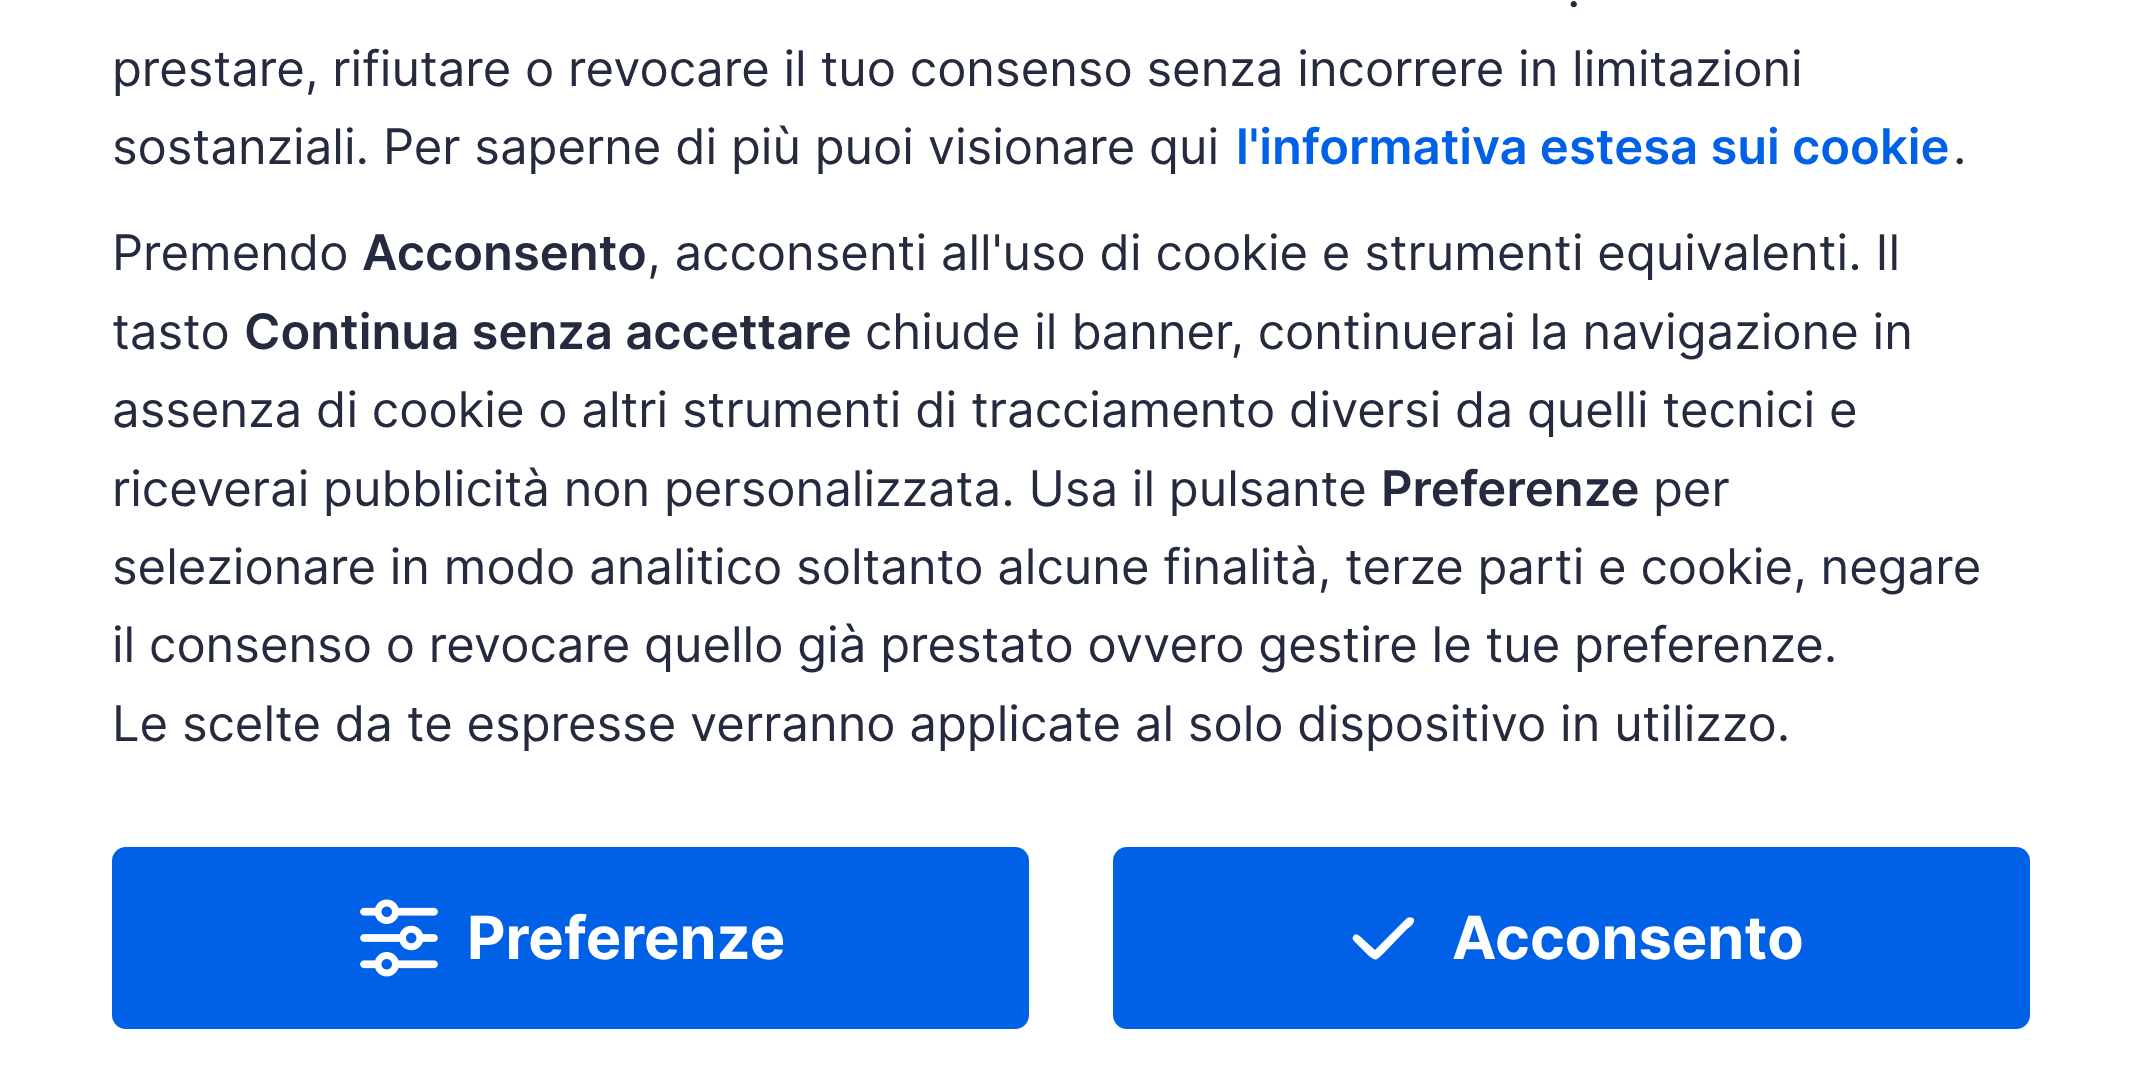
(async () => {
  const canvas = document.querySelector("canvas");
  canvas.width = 2142;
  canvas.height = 1085;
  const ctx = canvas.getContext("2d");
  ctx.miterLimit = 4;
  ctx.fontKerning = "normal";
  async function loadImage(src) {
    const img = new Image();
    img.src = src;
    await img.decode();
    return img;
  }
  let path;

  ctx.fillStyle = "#ffffff";
  ctx.fillRect(0, 0, 2142, 1085);
  ctx.fillStyle = "#0060e6";
  ctx.beginPath();
  ctx.roundRect(112, 847, 917, 182, 14);
  ctx.fill();
  ctx.drawImage(await loadImage("img/1.png"), 360, 899, 78, 78);
  ctx.beginPath();
  ctx.roundRect(1113, 847, 917, 182, 14);
  ctx.fill();
  ctx.fillStyle = "#ffffff";
  path = new Path2D("M1413 918C1417 922 1409 928 1407 929L1384 953C1376 960 1377 962 1369 956L1354 941C1353 940 1352 938 1353 937C1355 930 1362 938 1364 940L1375 950L1407 918C1409 917 1411 917 1413 918Z");
  ctx.fill(path, "evenodd");
  ctx.font = "49px Inter";
  ctx.fillStyle = "#252a3f";
  for (const [text, x, y] of [
    [".", 1567, 7],
    ["prestare, rifiutare o revocare il tuo consenso senza incorrere in limitazioni", 112, 86],
    ["sostanziali. Per saperne di più puoi visionare qui", 112, 164],
  ]) {
    ctx.fillText(text, x, y);
  }
  ctx.font = "600 49px Inter";
  ctx.fillStyle = "#0060e6";
  ctx.fillText("l'informativa estesa sui cookie", 1236, 164);
  ctx.font = "49px Inter";
  ctx.fillStyle = "#252a3f";
  ctx.fillText(".", 1953, 164);
  ctx.fillText("Premendo", 112, 270);
  ctx.font = "600 49px Inter";
  ctx.fillText("Acconsento", 362, 270);
  ctx.font = "49px Inter";
  ctx.fillText(", acconsenti all'uso di cookie e strumenti equivalenti. Il", 647, 270);
  ctx.fillText("tasto", 112, 349);
  ctx.font = "600 49px Inter";
  ctx.fillText("Continua senza accettare", 244, 349);
  ctx.font = "49px Inter";
  for (const [text, x, y] of [
    ["chiude il banner, continuerai la navigazione in", 865, 349],
    ["assenza di cookie o altri strumenti di tracciamento diversi da quelli tecnici e", 112, 427],
    ["riceverai pubblicità non personalizzata. Usa il pulsante", 112, 506],
  ]) {
    ctx.fillText(text, x, y);
  }
  ctx.font = "600 49px Inter";
  ctx.fillText("Preferenze", 1381, 506);
  ctx.font = "49px Inter";
  for (const [text, x, y] of [
    ["per", 1653, 506],
    ["selezionare in modo analitico soltanto alcune finalità, terze parti e cookie, negare", 112, 584],
    ["il consenso o revocare quello già prestato ovvero gestire le tue preferenze.", 112, 662],
    ["Le scelte da te espresse verranno applicate al solo dispositivo in utilizzo.", 112, 741],
  ]) {
    ctx.fillText(text, x, y);
  }
  ctx.font = "bold 59.5px Inter";
  ctx.fillStyle = "#ffffff";
  ctx.fillText("Preferenze", 467, 959);
  ctx.fillText("Acconsento", 1452, 959);
})();
